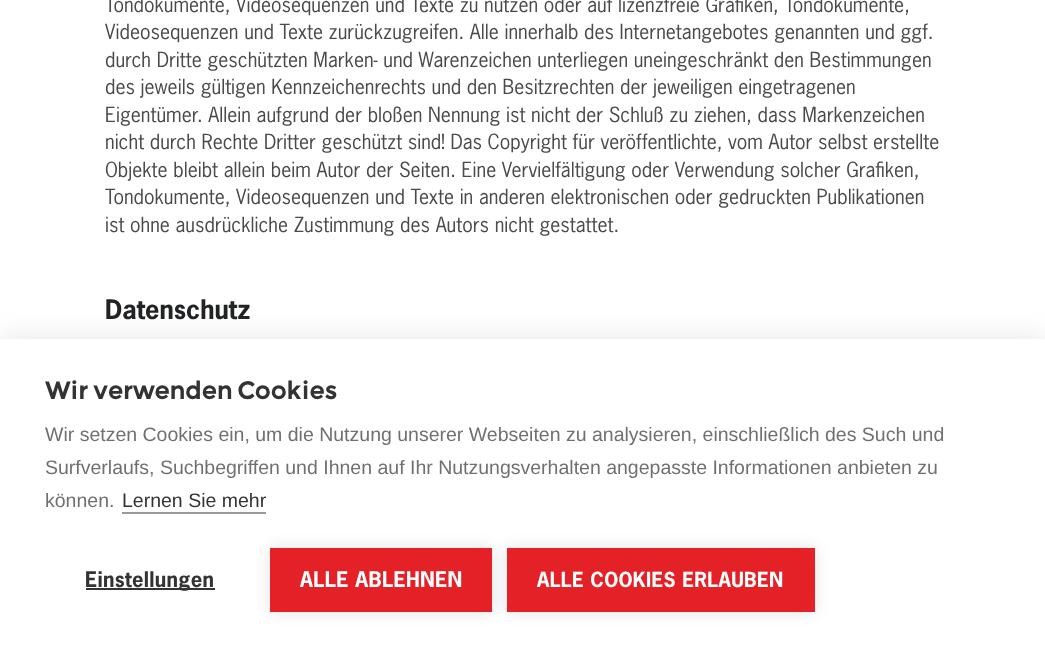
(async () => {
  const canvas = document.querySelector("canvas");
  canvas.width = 1045;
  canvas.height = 649;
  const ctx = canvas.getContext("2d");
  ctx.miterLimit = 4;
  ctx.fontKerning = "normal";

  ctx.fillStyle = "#ffffff";
  ctx.fillRect(0, 0, 1045, 649);
  ctx.fillStyle = "rgba(0, 0, 0, 0.1)";
  ctx.filter = "blur(15px)";
  ctx.beginPath();
  ctx.rect(0, 339, 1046, 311);
  ctx.fill();
  ctx.filter = "none";
  for (const [x, y, w, h, color] of [
    [0, 339, 1045, 310, "#ffffff"],
    [122, 512, 144, 2, "#999999"],
    [86, 588, 129, 2, "#333333"],
  ]) {
    ctx.fillStyle = color;
    ctx.fillRect(x, y, w, h);
  }
  ctx.fillStyle = "rgba(0, 0, 0, 0.12)";
  ctx.filter = "blur(7.5px)";
  ctx.beginPath();
  ctx.rect(270, 548, 222, 64);
  ctx.fill();
  ctx.filter = "none";
  ctx.fillStyle = "#e42127";
  ctx.fillRect(270, 548, 222, 64);
  ctx.fillStyle = "rgba(0, 0, 0, 0.12)";
  ctx.filter = "blur(7.5px)";
  ctx.beginPath();
  ctx.rect(507, 548, 308, 64);
  ctx.fill();
  ctx.filter = "none";
  ctx.fillStyle = "#e42127";
  ctx.fillRect(507, 548, 308, 64);
  ctx.font = "19.65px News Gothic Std";
  ctx.fillStyle = "#494a4c";
  for (const [text, x, y] of [
    ["Tondokumente, Videosequenzen und Texte zu nutzen oder auf lizenzfreie Grafiken, Tondokumente,", 105, 12],
    ["Videosequenzen und Texte zurückzugreifen. Alle innerhalb des Internetangebotes genannten und ggf.", 105, 39],
    ["durch Dritte geschützten Marken- und Warenzeichen unterliegen uneingeschränkt den Bestimmungen", 105, 67],
    ["des jeweils gültigen Kennzeichenrechts und den Besitzrechten der jeweiligen eingetragenen", 105, 94],
    ["Eigentümer. Allein aufgrund der bloßen Nennung ist nicht der Schluß zu ziehen, dass Markenzeichen", 105, 122],
    ["nicht durch Rechte Dritter geschützt sind! Das Copyright für veröffentlichte, vom Autor selbst erstellte", 105, 149],
    ["Objekte bleibt allein beim Autor der Seiten. Eine Vervielfältigung oder Verwendung solcher Grafiken,", 105, 177],
    ["Tondokumente, Videosequenzen und Texte in anderen elektronischen oder gedruckten Publikationen", 105, 204],
    ["ist ohne ausdrückliche Zustimmung des Autors nicht gestattet.", 105, 232],
  ]) {
    ctx.fillText(text, x, y);
  }
  ctx.font = "bold 25.25px News Gothic Std";
  ctx.fillStyle = "#222325";
  ctx.fillText("Datenschutz", 105, 319);
  ctx.font = "bold 24px Montserrat";
  ctx.fillStyle = "#333333";
  ctx.fillText("Wir verwenden Cookies", 45, 399);
  ctx.font = "19.5px Liberation Sans";
  ctx.fillStyle = "#707070";
  for (const [text, x, y] of [
    ["Wir setzen Cookies ein, um die Nutzung unserer Webseiten zu analysieren, einschließlich des Such und", 45, 441],
    ["Surfverlaufs, Suchbegriffen und Ihnen auf Ihr Nutzungsverhalten angepasste Informationen anbieten zu", 45, 474],
    ["können.", 45, 507],
  ]) {
    ctx.fillText(text, x, y);
  }
  ctx.fillStyle = "#333333";
  ctx.fillText("Lernen Sie mehr", 122, 507);
  ctx.letterSpacing = "0.3px";
  ctx.font = "bold 20.25px News Gothic Std";
  ctx.fillText("Einstellungen", 85, 587);
  ctx.fillStyle = "#ffffff";
  ctx.fillText("ALLE ABLEHNEN", 300, 587);
  ctx.font = "bold 19.5px News Gothic Std";
  ctx.fillText("ALLE COOKIES ERLAUBEN", 537, 587);
})();
